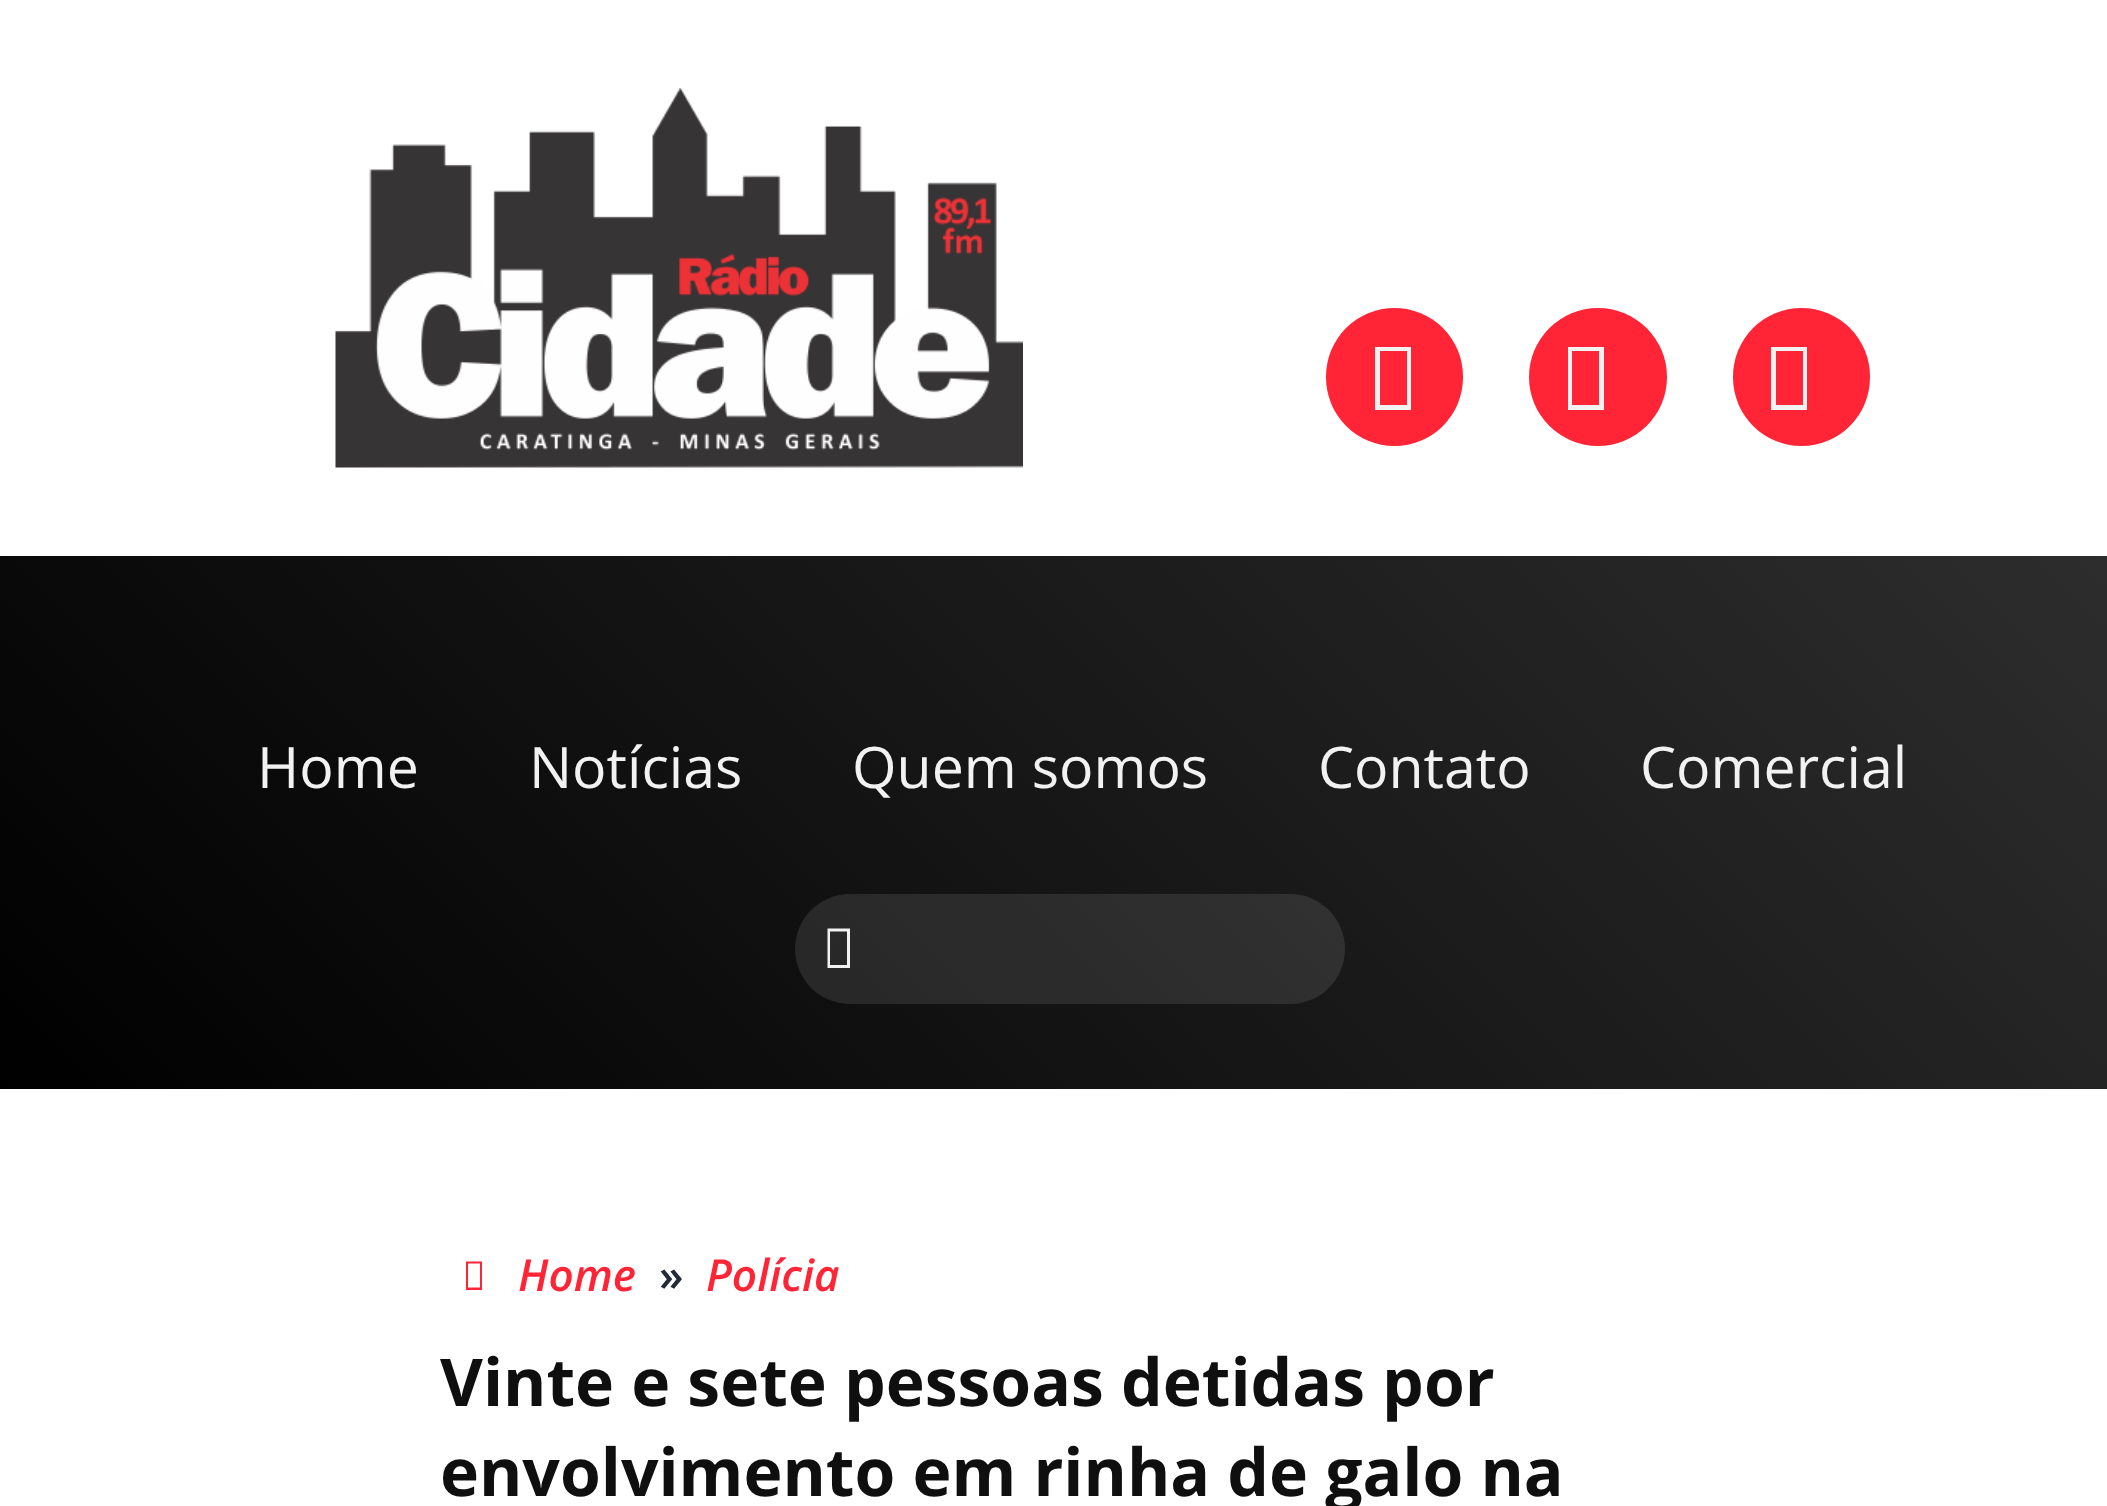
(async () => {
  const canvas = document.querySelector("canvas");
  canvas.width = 2107;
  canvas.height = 1506;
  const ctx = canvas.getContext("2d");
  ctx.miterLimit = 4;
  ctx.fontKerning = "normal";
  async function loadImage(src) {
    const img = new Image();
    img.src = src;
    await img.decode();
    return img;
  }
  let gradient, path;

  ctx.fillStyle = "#ffffff";
  ctx.fillRect(0, 0, 2107, 1506);
  ctx.drawImage(await loadImage("img/1.png"), 335, 88, 688, 380);
  ctx.fillStyle = "#ff2436";
  ctx.beginPath();
  ctx.roundRect(1326, 308, 137, 138, 68.5);
  ctx.fill();
  ctx.fillStyle = "#f2f2f2";
  path = new Path2D("M1375 410V347H1411V410ZM1380 405H1407V351H1380Z");
  ctx.fill(path);
  ctx.fillStyle = "#ff2436";
  ctx.beginPath();
  ctx.arc(1598, 377, 69, 0, Math.PI * 2);
  ctx.fill();
  ctx.fillStyle = "#f2f2f2";
  path = new Path2D("M1568 410V347H1604V410ZM1572 405H1599V351H1572Z");
  ctx.fill(path);
  ctx.fillStyle = "#ff2436";
  ctx.beginPath();
  ctx.roundRect(1733, 308, 137, 138, 68.5);
  ctx.fill();
  ctx.fillStyle = "#f2f2f2";
  path = new Path2D("M1771 410V347H1807V410ZM1776 405H1803V351H1776Z");
  ctx.fill(path);
  gradient = ctx.createLinearGradient(394, 1483, 1715, 162);
  gradient.addColorStop(0, "#000000");
  gradient.addColorStop(1, "#2d2d2d");
  ctx.fillStyle = gradient;
  ctx.fillRect(0, 556, 2107, 533);
  ctx.fillStyle = "rgba(255, 255, 255, 0.1)";
  ctx.beginPath();
  ctx.roundRect(795, 894, 550, 110, 55);
  ctx.fill();
  ctx.fillStyle = "#f2f2f2";
  path = new Path2D("M827.5 968V928.5H850V968ZM830 965H847V931.5H830Z");
  ctx.fill(path);
  ctx.fillStyle = "#ff2436";
  path = new Path2D("M466 1290V1261.5H482V1290ZM468 1287.5H480V1263.5H468Z");
  ctx.fill(path);
  ctx.font = "57.25px Open Sans";
  ctx.fillStyle = "#f2f2f2";
  for (const [text, x, y] of [
    ["Home", 257, 788],
    ["Notícias", 529, 788],
    ["Quem somos", 852, 788],
    ["Contato", 1318, 788],
    ["Comercial", 1640, 788],
  ]) {
    ctx.fillText(text, x, y);
  }
  ctx.font = "italic 600 44px Open Sans";
  ctx.fillStyle = "#ff2436";
  ctx.fillText("Home", 518, 1291);
  ctx.font = "600 44px Open Sans";
  ctx.fillStyle = "#242a38";
  ctx.fillText("»", 659, 1291);
  ctx.font = "italic 600 44px Open Sans";
  ctx.fillStyle = "#ff2436";
  ctx.fillText("Polícia", 706, 1291);
  ctx.font = "bold 66px Open Sans";
  ctx.fillStyle = "#0f0f0f";
  ctx.fillText("Vinte e sete pessoas detidas por", 440, 1406);
  ctx.fillText("envolvimento em rinha de galo na", 440, 1496);
})();
